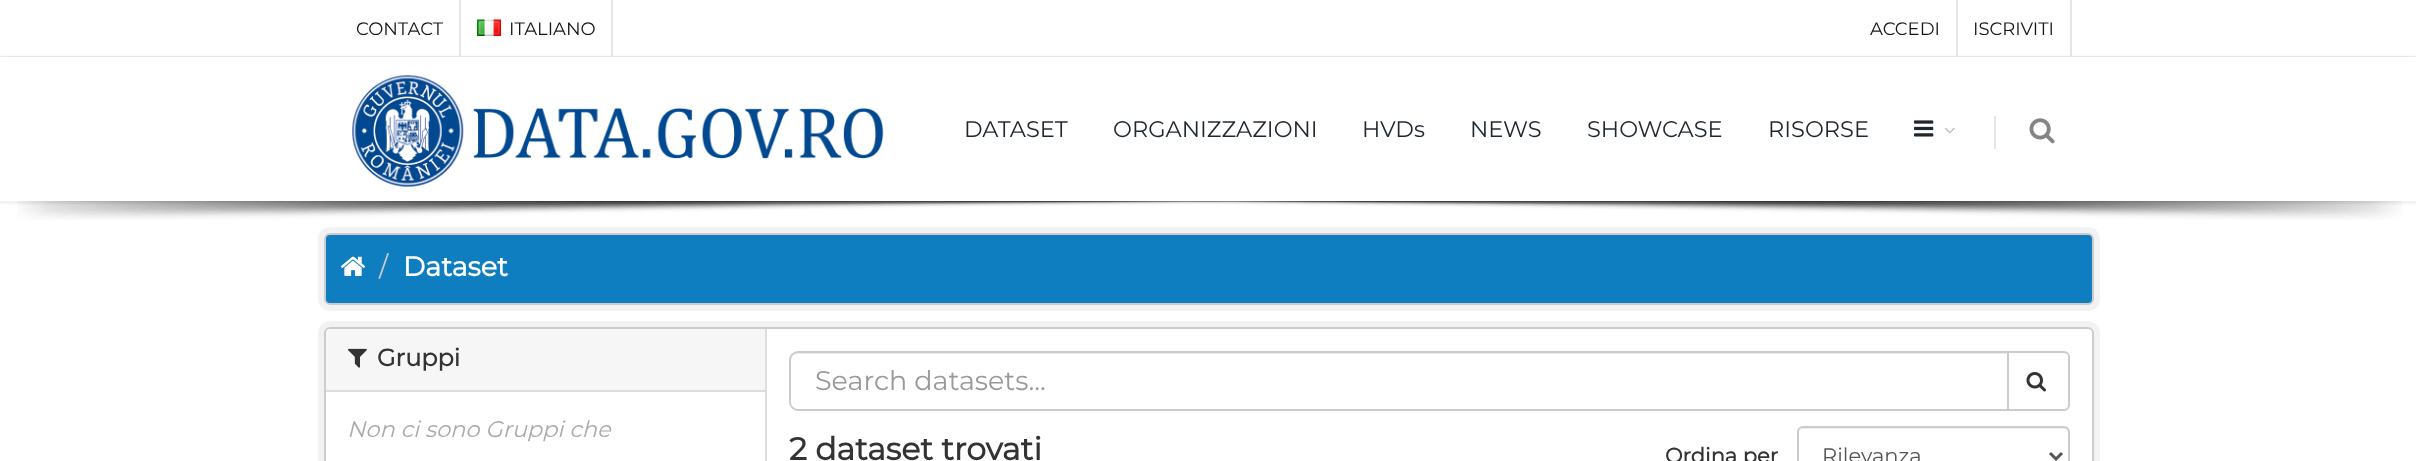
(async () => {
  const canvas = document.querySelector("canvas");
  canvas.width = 2416;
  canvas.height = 461;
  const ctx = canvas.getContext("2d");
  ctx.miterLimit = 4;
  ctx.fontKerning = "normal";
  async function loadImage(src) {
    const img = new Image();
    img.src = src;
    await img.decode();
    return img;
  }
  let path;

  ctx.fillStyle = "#ffffff";
  ctx.fillRect(0, 0, 2416, 461);
  for (const [x, y, w, h, color] of [
    [0, 56, 2416, 1, "#f2f2f2"],
    [459, 0, 2, 56, "#e6e6e6"],
    [611, 0, 2, 56, "#e6e6e6"],
  ]) {
    ctx.fillStyle = color;
    ctx.fillRect(x, y, w, h);
  }
  ctx.drawImage(await loadImage("img/1.png"), 477, 19, 24, 17);
  ctx.fillRect(1956, 0, 2, 56);
  ctx.fillRect(2070, 0, 2, 56);
  ctx.fillStyle = "rgba(0, 0, 0, 0.1)";
  ctx.filter = "blur(1.5px)";
  ctx.beginPath();
  ctx.rect(0, 57, 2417, 146);
  ctx.fill();
  ctx.filter = "none";
  ctx.fillStyle = "#ffffff";
  ctx.fillRect(0, 57, 2416, 144);
  ctx.fillStyle = "#f2f2f2";
  ctx.fillRect(0, 201, 2416, 2);
  ctx.drawImage(await loadImage("img/2.png"), 352, 75, 532, 112);
  ctx.drawImage(await loadImage("img/3.png"), 1914, 120, 20, 17);
  ctx.drawImage(await loadImage("img/4.png"), 1944, 127, 11, 7);
  ctx.fillStyle = "#e6e6e6";
  ctx.fillRect(1994, 116, 2, 33);
  ctx.drawImage(await loadImage("img/5.png"), 2029, 118, 26, 26);
  ctx.drawImage(await loadImage("img/6.png"), 17, 201, 2385, 19);
  ctx.beginPath();
  ctx.roundRect(321, 230, 1776, 78, 9);
  ctx.strokeStyle = "#f2f2f2";
  ctx.lineWidth = 6;
  ctx.stroke();
  ctx.fillStyle = "#0e7ec1";
  ctx.beginPath();
  ctx.roundRect(325, 234, 1768, 70, 5);
  ctx.fill();
  ctx.strokeStyle = "#cccccc";
  ctx.lineWidth = 2;
  ctx.stroke();
  ctx.drawImage(await loadImage("img/7.png"), 340, 256, 26, 20);
  ctx.beginPath();
  ctx.roundRect(321, 324, 1776, 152, 9);
  ctx.strokeStyle = "#f2f2f2";
  ctx.lineWidth = 6;
  ctx.stroke();
  ctx.fillStyle = "#ffffff";
  ctx.beginPath();
  ctx.roundRect(325, 328, 1768, 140, 5);
  ctx.fill();
  ctx.strokeStyle = "#cccccc";
  ctx.lineWidth = 2;
  ctx.stroke();
  ctx.fillStyle = "#f6f6f6";
  ctx.beginPath();
  ctx.roundRect(326, 329, 439, 63, [5, 0, 0, 0]);
  ctx.fill();
  ctx.fillStyle = "#dddddd";
  ctx.fillRect(326, 390, 439, 2);
  ctx.drawImage(await loadImage("img/8.png"), 348, 348, 19, 20);
  ctx.fillRect(765, 329, 2, 132);
  ctx.fillStyle = "#ececec";
  path = new Path2D("M798 354H2007V353H799C797 353 794 354 793 356C794 355 796 354 798 354Z");
  ctx.fill(path);
  ctx.beginPath();
  ctx.roundRect(790, 352, 1218, 58, [8, 0, 0, 8]);
  ctx.stroke();
  ctx.fillStyle = "#ffffff";
  ctx.beginPath();
  ctx.roundRect(2008, 352, 61, 58, [0, 5, 5, 0]);
  ctx.fill();
  ctx.stroke();
  ctx.drawImage(await loadImage("img/9.png"), 2026, 372, 20, 20);
  ctx.fillStyle = "#ececec";
  path = new Path2D("M1803 429H2064C2066 429 2068 431 2068 434V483C2069 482 2069 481 2069 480V433C2069 430 2067 428 2064 428H1804C1802 428 1801 429 1800 430Z");
  ctx.fill(path);
  ctx.beginPath();
  ctx.roundRect(1798, 427, 271, 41, 5);
  ctx.stroke();
  path = new Path2D("M2050 453L2056 459L2062 453");
  ctx.strokeStyle = "#555555";
  ctx.lineWidth = 3;
  ctx.stroke(path);
  ctx.font = "100 18px Montserrat";
  ctx.fillStyle = "#151515";
  for (const [text, x, y] of [
    ["CONTACT", 356, 35],
    ["ITALIANO", 509, 35],
    ["ACCEDI", 1870, 35],
    ["ISCRIVITI", 1973, 35],
  ]) {
    ctx.fillText(text, x, y);
  }
  ctx.font = "100 22.5px Montserrat";
  ctx.fillStyle = "#1f262d";
  for (const [text, x, y] of [
    ["DATASET", 964, 137],
    ["ORGANIZZAZIONI", 1113, 137],
    ["HVDs", 1362, 137],
    ["NEWS", 1470, 137],
    ["SHOWCASE", 1587, 137],
    ["RISORSE", 1768, 137],
  ]) {
    ctx.fillText(text, x, y);
  }
  ctx.font = "100 27px Montserrat";
  ctx.fillStyle = "#cccccc";
  ctx.fillText("/", 379, 276);
  ctx.font = "bold 27px Montserrat";
  ctx.fillStyle = "#ffffff";
  ctx.fillText("Dataset", 403, 276);
  ctx.font = "bold 24px Montserrat";
  ctx.fillStyle = "#333333";
  ctx.fillText("Gruppi", 377, 366);
  ctx.font = "italic 100 22.5px Montserrat";
  ctx.fillStyle = "#aaaaaa";
  ctx.fillText("Non ci sono Gruppi che", 347, 437);
  ctx.font = "100 27px Montserrat";
  ctx.fillStyle = "#999999";
  ctx.fillText("Search datasets...", 815, 390);
  ctx.font = "bold 31.5px Montserrat";
  ctx.fillStyle = "#333333";
  ctx.fillText("2 dataset trovati", 789, 460);
  ctx.font = "bold 21px Montserrat";
  ctx.fillText("Ordina per", 1665, 463);
  ctx.font = "100 21px Montserrat";
  ctx.fillStyle = "#555555";
  ctx.fillText("Rilevanza", 1822, 463);
})();
